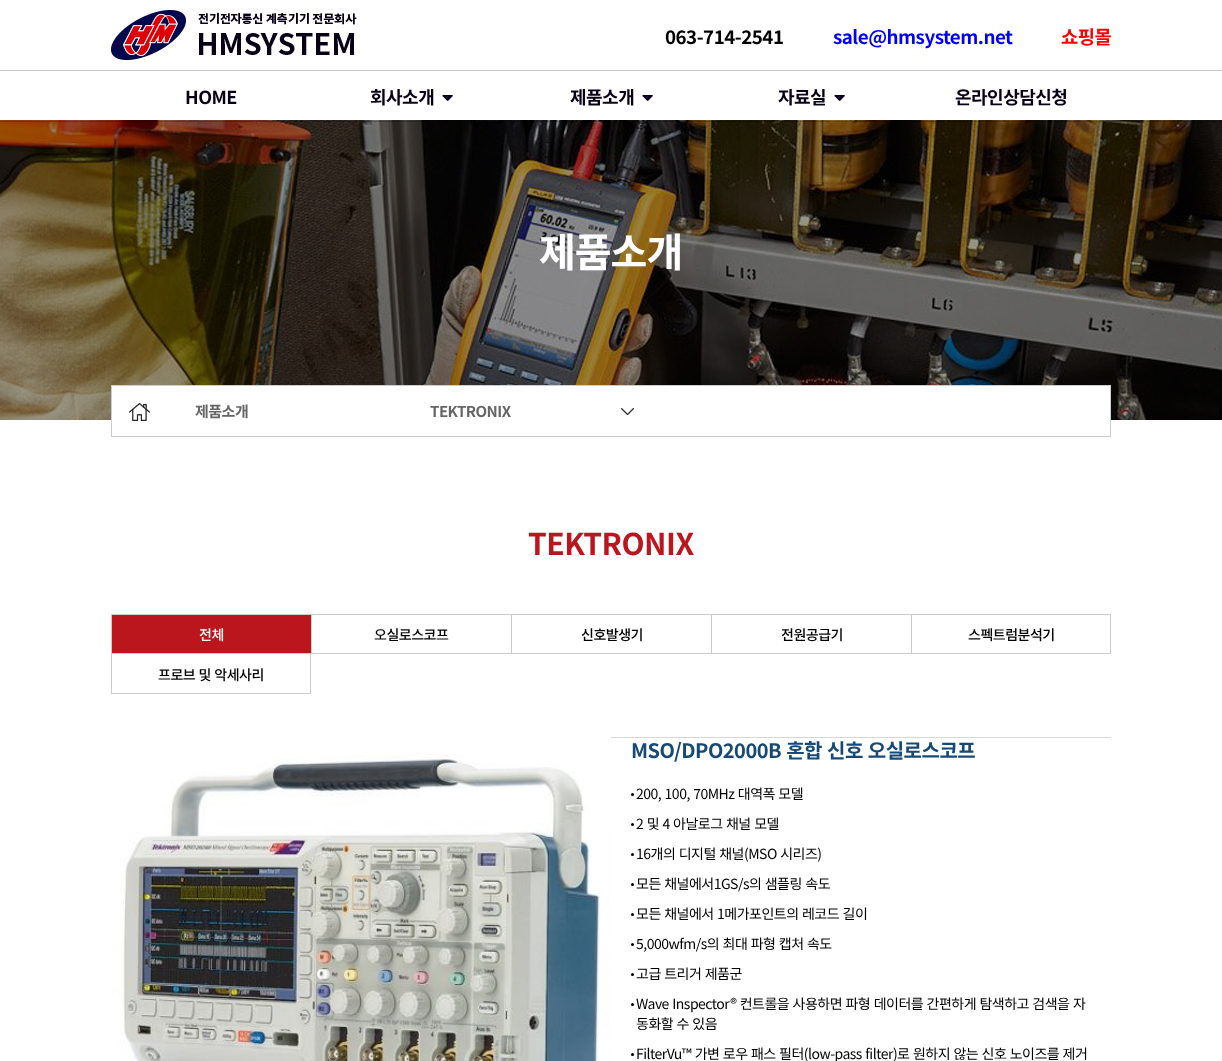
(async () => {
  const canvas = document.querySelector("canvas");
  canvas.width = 1222;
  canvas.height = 1061;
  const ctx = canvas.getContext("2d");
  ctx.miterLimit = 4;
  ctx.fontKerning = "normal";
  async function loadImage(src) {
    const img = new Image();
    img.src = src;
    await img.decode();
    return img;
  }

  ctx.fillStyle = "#ffffff";
  ctx.fillRect(0, 0, 1222, 1061);
  ctx.drawImage(await loadImage("img/1.png"), 111, 10, 246, 50);
  ctx.fillStyle = "#cccccc";
  ctx.fillRect(0, 70, 1222, 1);
  ctx.drawImage(await loadImage("img/3.png"), 0, 120, 1222, 300);
  ctx.fillStyle = "rgba(0, 0, 0, 0.2)";
  ctx.fillRect(0, 121, 1222, 1);
  ctx.drawImage(await loadImage("img/2.png"), 442, 95, 11, 6);
  ctx.drawImage(await loadImage("img/2.png"), 642, 95, 11, 6);
  ctx.drawImage(await loadImage("img/2.png"), 834, 95, 11, 6);
  ctx.fillStyle = "#ffffff";
  ctx.fillRect(112, 386, 998, 34);
  ctx.strokeStyle = "#cccccc";
  ctx.strokeRect(111.5, 385.5, 999, 51);
  ctx.drawImage(await loadImage("img/4.png"), 129, 403, 21, 18);
  ctx.drawImage(await loadImage("img/5.png"), 621, 408, 13, 7);
  for (const [x, y, w, h, color] of [
    [112, 615, 199, 38, "#bb161d"],
    [111, 614, 800, 1, "#cccccc"],
    [111, 653, 800, 1, "#cccccc"],
    [111, 614, 1, 40, "#cccccc"],
    [311, 614, 1, 40, "#cccccc"],
    [511, 614, 1, 40, "#cccccc"],
    [711, 614, 1, 40, "#cccccc"],
  ]) {
    ctx.fillStyle = color;
    ctx.fillRect(x, y, w, h);
  }
  ctx.strokeRect(911.5, 614.5, 199, 39);
  for (const [x, y, w, h, color] of [
    [310, 654, 1, 40, "#cccccc"],
    [111, 693, 200, 1, "#cccccc"],
    [111, 654, 1, 40, "#cccccc"],
    [611, 737, 500, 1, "#d7d7d7"],
  ]) {
    ctx.fillStyle = color;
    ctx.fillRect(x, y, w, h);
  }
  ctx.drawImage(await loadImage("img/6.png"), 111, 737, 500, 324);
  ctx.fillStyle = "#000000";
  ctx.beginPath();
  ctx.arc(632.5, 794.5, 1.5, 0, Math.PI * 2);
  ctx.fill();
  ctx.beginPath();
  ctx.arc(632.5, 824.5, 1.5, 0, Math.PI * 2);
  ctx.fill();
  ctx.beginPath();
  ctx.arc(632.5, 854.5, 1.5, 0, Math.PI * 2);
  ctx.fill();
  ctx.beginPath();
  ctx.arc(632.5, 884.5, 1.5, 0, Math.PI * 2);
  ctx.fill();
  ctx.beginPath();
  ctx.arc(632.5, 914.5, 1.5, 0, Math.PI * 2);
  ctx.fill();
  ctx.beginPath();
  ctx.arc(632.5, 944.5, 1.5, 0, Math.PI * 2);
  ctx.fill();
  ctx.beginPath();
  ctx.arc(632.5, 974.5, 1.5, 0, Math.PI * 2);
  ctx.fill();
  ctx.beginPath();
  ctx.arc(632.5, 1004.5, 1.5, 0, Math.PI * 2);
  ctx.fill();
  ctx.beginPath();
  ctx.arc(632.5, 1054.5, 1.5, 0, Math.PI * 2);
  ctx.fill();
  ctx.letterSpacing = "-0.5px";
  ctx.font = "bold 18.75px Noto Sans KR";
  ctx.fillText("063-714-2541", 665, 44);
  ctx.fillStyle = "#0000ff";
  ctx.fillText("sale@hmsystem.net", 833, 44);
  ctx.fillStyle = "#ff0000";
  ctx.fillText("쇼핑몰", 1061, 44);
  ctx.font = "bold 18px Noto Sans KR";
  ctx.fillStyle = "#070017";
  for (const [text, x, y] of [
    ["HOME", 185, 104],
    ["회사소개", 370, 104],
    ["제품소개", 570, 104],
    ["자료실", 778, 104],
    ["온라인상담신청", 955, 104],
  ]) {
    ctx.fillText(text, x, y);
  }
  ctx.letterSpacing = "-1px";
  ctx.font = "bold 40px Noto Sans KR";
  ctx.fillStyle = "#ffffff";
  ctx.fillText("제품소개", 539, 267);
  ctx.letterSpacing = "-0.5px";
  ctx.font = "bold 15px Noto Sans KR";
  ctx.fillStyle = "#666666";
  ctx.fillText("제품소개", 195, 417);
  ctx.fillText("TEKTRONIX", 430, 417);
  ctx.font = "bold 30px Noto Sans KR";
  ctx.fillStyle = "#bb161d";
  ctx.fillText("TEKTRONIX", 528, 555);
  ctx.font = "500 14px Noto Sans KR";
  ctx.fillStyle = "#ffffff";
  ctx.fillText("전체", 199, 640);
  ctx.fillStyle = "#000000";
  for (const [text, x, y] of [
    ["오실로스코프", 374, 640],
    ["신호발생기", 581, 640],
    ["전원공급기", 781, 640],
    ["스펙트럼분석기", 968, 640],
  ]) {
    ctx.fillText(text, x, y);
  }
  ctx.wordSpacing = "0.75px";
  ctx.fillText("프로브 및 악세사리", 158, 680);
  ctx.wordSpacing = "1px";
  ctx.font = "bold 20px Noto Sans KR";
  ctx.fillStyle = "#164976";
  ctx.fillText("MSO/DPO2000B 혼합 신호 오실로스코프", 631, 758);
  ctx.wordSpacing = "0.75px";
  ctx.font = "14px Noto Sans KR";
  ctx.fillStyle = "#000000";
  for (const [text, x, y] of [
    ["200, 100, 70MHz 대역폭 모델", 636, 799],
    ["2 및 4 아날로그 채널 모델", 636, 829],
    ["16개의 디지털 채널(MSO 시리즈)", 636, 859],
    ["모든 채널에서1GS/s의 샘플링 속도", 636, 889],
    ["모든 채널에서 1메가포인트의 레코드 길이", 636, 919],
    ["5,000wfm/s의 최대 파형 캡처 속도", 636, 949],
    ["고급 트리거 제품군", 636, 979],
    ["Wave Inspector® 컨트롤을 사용하면 파형 데이터를 간편하게 탐색하고 검색을 자", 636, 1009],
    ["동화할 수 있음", 636, 1029],
    ["FilterVu™ 가변 로우 패스 필터(low-pass filter)로 원하지 않는 신호 노이즈를 제거", 636, 1059],
  ]) {
    ctx.fillText(text, x, y);
  }
})();
